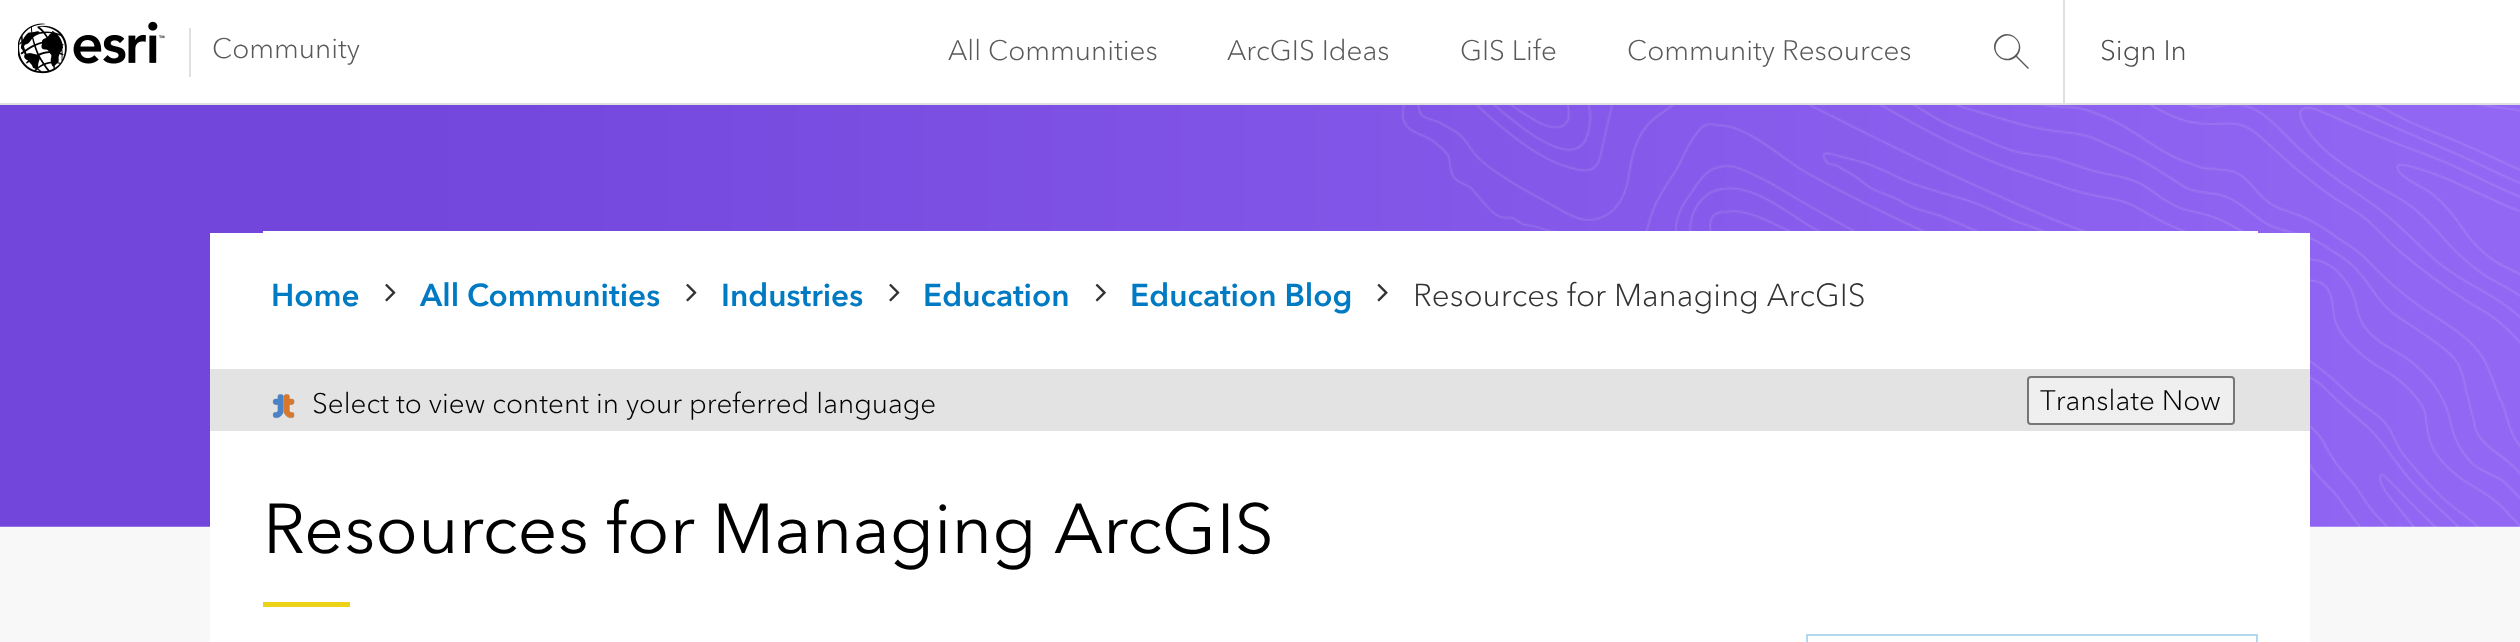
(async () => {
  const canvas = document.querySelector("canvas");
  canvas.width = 2520;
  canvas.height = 642;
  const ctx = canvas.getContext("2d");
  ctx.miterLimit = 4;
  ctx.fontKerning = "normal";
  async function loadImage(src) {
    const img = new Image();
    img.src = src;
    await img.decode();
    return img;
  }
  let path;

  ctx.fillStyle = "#f8f8f8";
  ctx.fillRect(0, 0, 2520, 642);
  ctx.fillStyle = "#ffffff";
  ctx.fillRect(0, 0, 2520, 103);
  ctx.fillStyle = "#e0e0e0";
  ctx.fillRect(0, 103, 2520, 2);
  ctx.drawImage(await loadImage("img/1.png"), 18, 21, 147, 53);
  ctx.fillRect(189, 28, 2, 49);
  ctx.fillRect(2063, 0, 2, 103);
  ctx.fillStyle = "#595959";
  path = new Path2D("M2029 68L2017 56C2028 43.5 2009.5 26 1998 38C1986 49.5 2003.5 68 2016 57L2028 69ZM1999 55.5C1989 45 2004 29 2015 38.5C2026.5 49 2010 66 1999 55.5Z");
  ctx.fill(path);
  ctx.drawImage(await loadImage("img/2.png"), 0, 105, 2520, 422);
  ctx.fillStyle = "#ffffff";
  ctx.fillRect(263, 231, 1995, 2);
  ctx.fillRect(210, 233, 2100, 136);
  ctx.drawImage(await loadImage("img/3.png"), 385, 283, 11, 19);
  ctx.drawImage(await loadImage("img/3.png"), 686, 283, 11, 19);
  ctx.drawImage(await loadImage("img/3.png"), 889, 283, 11, 19);
  ctx.drawImage(await loadImage("img/4.png"), 1095, 283, 11, 19);
  ctx.drawImage(await loadImage("img/5.png"), 1377, 283, 11, 19);
  ctx.fillStyle = "#e3e3e3";
  ctx.fillRect(210, 369, 2100, 62);
  ctx.drawImage(await loadImage("img/6.png"), 272, 393, 23, 26);
  ctx.fillStyle = "#efefef";
  ctx.beginPath();
  ctx.roundRect(2028, 377, 206, 47, 3);
  ctx.fill();
  ctx.strokeStyle = "#767676";
  ctx.lineWidth = 2;
  ctx.stroke();
  ctx.fillStyle = "#ffffff";
  ctx.fillRect(210, 431, 2100, 211);
  ctx.fillStyle = "#edd317";
  ctx.fillRect(263, 602, 87, 5);
  ctx.strokeStyle = "#b3d7ed";
  ctx.strokeRect(1807, 635, 450, 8);
  ctx.font = "300 28px Avenir Next";
  ctx.fillStyle = "#595959";
  for (const [text, x, y] of [
    ["Community", 212, 58],
    ["All Communities", 948, 60],
    ["ArcGIS Ideas", 1227, 60],
    ["GIS Life", 1460, 60],
    ["Community Resources", 1627, 60],
  ]) {
    ctx.fillText(text, x, y);
  }
  ctx.fillStyle = "#4c4c4c";
  ctx.fillText("Sign In", 2100, 60);
  ctx.font = "bold 31.5px Avenir Next";
  ctx.fillStyle = "#007ac2";
  for (const [text, x, y] of [
    ["Home", 271, 306],
    ["All Communities", 420, 306],
    ["Industries", 721, 306],
    ["Education", 923, 306],
    ["Education Blog", 1130, 306],
  ]) {
    ctx.fillText(text, x, y);
  }
  ctx.font = "300 31.5px Avenir Next";
  ctx.fillStyle = "#333333";
  ctx.fillText("Resources for Managing ArcGIS", 1413, 306);
  ctx.font = "300 28px Avenir Next";
  ctx.fillStyle = "#000000";
  ctx.fillText("Select to view content in your preferred language", 312, 413);
  ctx.fillText("Translate Now", 2040, 410);
  ctx.font = "70px Avenir Next";
  ctx.fillText("Resources for Managing ArcGIS", 263, 553);
})();
